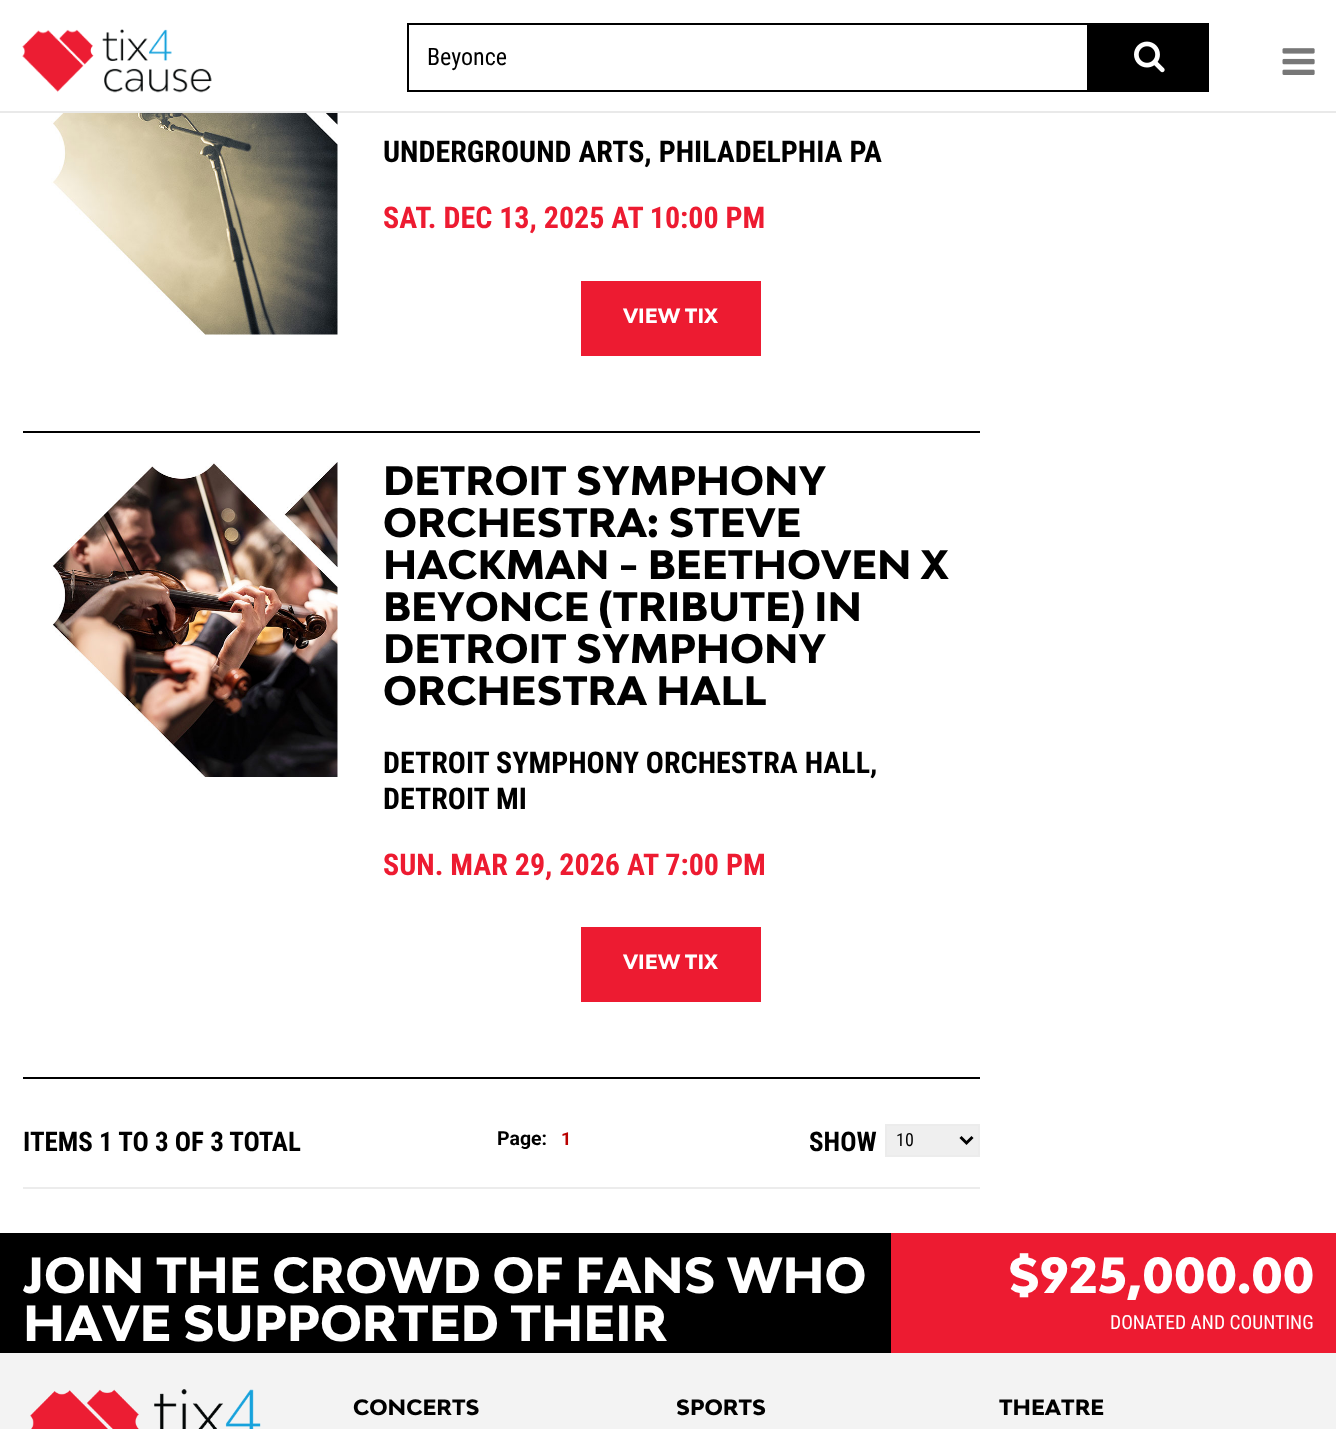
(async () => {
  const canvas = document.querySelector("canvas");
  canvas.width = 1336;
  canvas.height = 1429;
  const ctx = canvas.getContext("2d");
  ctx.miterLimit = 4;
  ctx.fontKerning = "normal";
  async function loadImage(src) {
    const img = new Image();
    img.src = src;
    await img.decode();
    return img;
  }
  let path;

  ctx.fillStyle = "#ffffff";
  ctx.fillRect(0, 0, 1336, 1429);
  ctx.drawImage(await loadImage("img/1.png"), 22, 29, 190, 64);
  ctx.strokeStyle = "#000000";
  ctx.lineWidth = 2;
  ctx.strokeRect(408, 24, 680, 67);
  ctx.fillStyle = "#000000";
  ctx.fillRect(1089, 23, 120, 69);
  ctx.drawImage(await loadImage("img/2.png"), 1134, 41, 31, 32);
  ctx.fillStyle = "#e9e9e9";
  ctx.fillRect(0, 111, 1336, 2);
  ctx.drawImage(await loadImage("img/3.png"), 1282, 48, 33, 27);
  ctx.fillStyle = "#000000";
  ctx.fillRect(23, 431, 957, 2);
  ctx.drawImage(await loadImage("img/4.png"), 51, 113, 287, 222);
  ctx.fillStyle = "#ed1b31";
  ctx.fillRect(581, 281, 180, 75);
  ctx.fillStyle = "#000000";
  ctx.fillRect(23, 1077, 957, 2);
  ctx.drawImage(await loadImage("img/5.png"), 52, 462, 286, 315);
  ctx.fillStyle = "#ed1b31";
  ctx.fillRect(581, 927, 180, 75);
  ctx.fillStyle = "#ececec";
  ctx.fillRect(23, 1187, 957, 2);
  ctx.fillStyle = "#efefef";
  ctx.beginPath();
  ctx.rect(886, 1125, 93, 31);
  ctx.fill();
  ctx.strokeStyle = "#ececec";
  ctx.stroke();
  path = new Path2D("M960.5 1137L966.5 1143L972.5 1137");
  ctx.strokeStyle = "#000000";
  ctx.lineWidth = 3;
  ctx.stroke(path);
  for (const [x, y, w, h, color] of [
    [891, 1233, 445, 120, "#ed1b31"],
    [0, 1233, 891, 120, "#000000"],
    [0, 1353, 1336, 76, "#f3f3f3"],
  ]) {
    ctx.fillStyle = color;
    ctx.fillRect(x, y, w, h);
  }
  ctx.drawImage(await loadImage("img/6.png"), 30, 1389, 231, 40);
  ctx.font = "24px Roboto Condensed";
  ctx.fillStyle = "#000000";
  ctx.fillText("Beyonce", 427, 65);
  ctx.font = "bold 30px Roboto Condensed";
  ctx.fillText("UNDERGROUND ARTS, PHILADELPHIA PA", 383, 162);
  ctx.fillStyle = "#ed1b31";
  ctx.fillText("SAT. DEC 13, 2025 AT 10:00 PM", 383, 228);
  ctx.font = "19.5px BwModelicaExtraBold";
  ctx.fillStyle = "#ffffff";
  ctx.fillText("VIEW TIX", 623, 323);
  ctx.font = "39px BwModelicaExtraBold";
  ctx.fillStyle = "#000000";
  for (const [text, x, y] of [
    ["DETROIT SYMPHONY", 383, 495],
    ["ORCHESTRA: STEVE", 383, 537],
    ["HACKMAN - BEETHOVEN X", 383, 579],
    ["BEYONCE (TRIBUTE) IN", 383, 621],
    ["DETROIT SYMPHONY", 383, 663],
    ["ORCHESTRA HALL", 383, 705],
  ]) {
    ctx.fillText(text, x, y);
  }
  ctx.font = "bold 30px Roboto Condensed";
  ctx.fillText("DETROIT SYMPHONY ORCHESTRA HALL,", 383, 773);
  ctx.fillText("DETROIT MI", 383, 809);
  ctx.fillStyle = "#ed1b31";
  ctx.fillText("SUN. MAR 29, 2026 AT 7:00 PM", 383, 875);
  ctx.font = "19.5px BwModelicaExtraBold";
  ctx.fillStyle = "#ffffff";
  ctx.fillText("VIEW TIX", 623, 969);
  ctx.font = "bold 27px Roboto Condensed";
  ctx.fillStyle = "#000000";
  ctx.fillText("ITEMS 1 TO 3 OF 3 TOTAL", 23, 1151);
  ctx.font = "bold 19.5px Roboto";
  ctx.fillText("Page:", 497, 1145);
  ctx.font = "bold 18px Roboto";
  ctx.fillStyle = "#b90100";
  ctx.fillText("1", 561, 1145);
  ctx.font = "bold 27px Roboto Condensed";
  ctx.fillStyle = "#000000";
  ctx.fillText("SHOW", 809, 1151);
  ctx.font = "18px Roboto Condensed";
  ctx.fillText("10", 896, 1146);
  ctx.font = "48px BwModelicaExtraBold";
  ctx.fillStyle = "#ffffff";
  for (const [text, x, y] of [
    ["JOIN THE CROWD OF FANS WHO", 23, 1293],
    ["HAVE SUPPORTED THEIR", 23, 1341],
    ["$925,000.00", 1008, 1293],
  ]) {
    ctx.fillText(text, x, y);
  }
  ctx.font = "19.5px Roboto Condensed";
  ctx.fillText("DONATED AND COUNTING", 1110, 1329);
  ctx.font = "21px BwModelicaExtraBold";
  ctx.fillStyle = "#000000";
  for (const [text, x, y] of [
    ["CONCERTS", 353, 1415],
    ["SPORTS", 676, 1415],
    ["THEATRE", 999, 1415],
  ]) {
    ctx.fillText(text, x, y);
  }
})();
